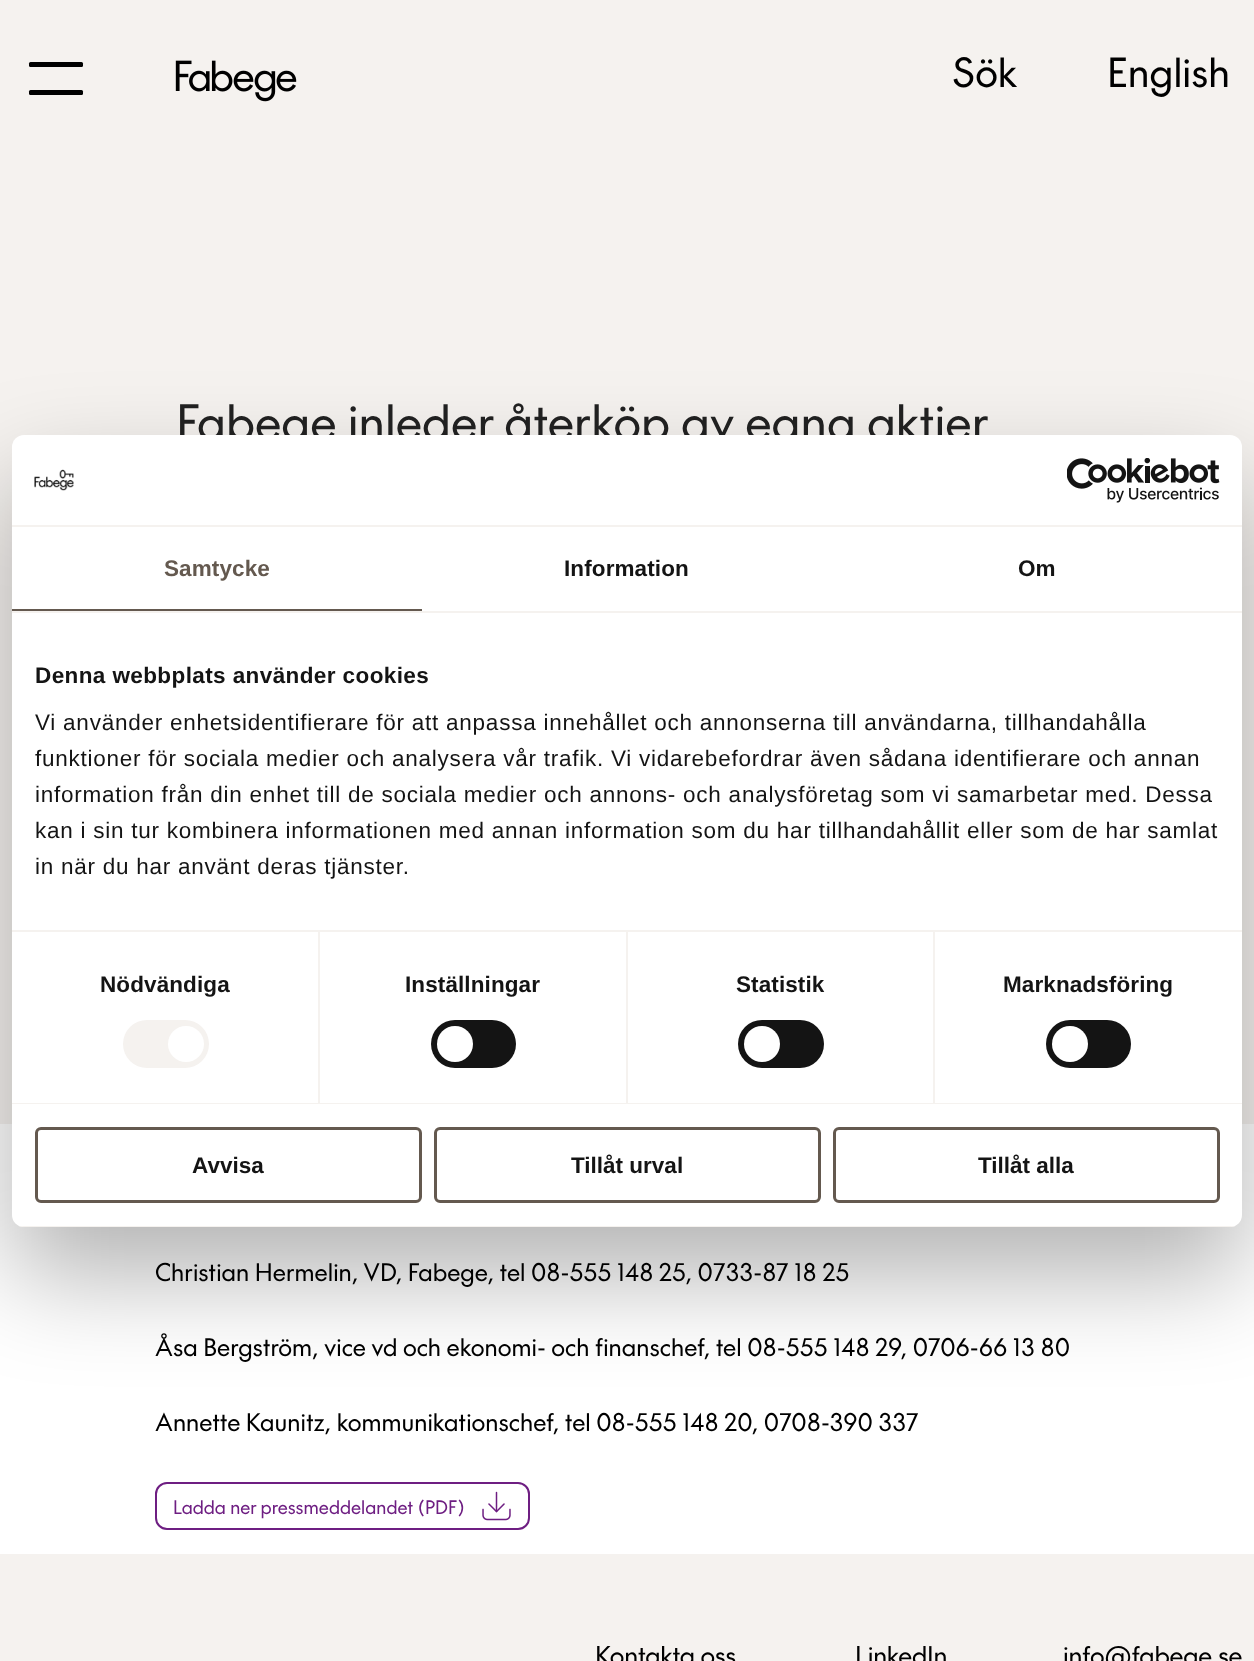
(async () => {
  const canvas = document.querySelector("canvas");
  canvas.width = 1254;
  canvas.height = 1661;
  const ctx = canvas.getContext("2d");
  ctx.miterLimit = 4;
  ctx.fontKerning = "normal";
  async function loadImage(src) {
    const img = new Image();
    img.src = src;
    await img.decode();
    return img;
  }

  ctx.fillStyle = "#f5f2ef";
  ctx.fillRect(0, 0, 1254, 1661);
  ctx.fillStyle = "#000000";
  ctx.beginPath();
  ctx.roundRect(29, 62, 54, 5, 1.5);
  ctx.fill();
  ctx.beginPath();
  ctx.roundRect(29, 90, 54, 5, 1.5);
  ctx.fill();
  ctx.drawImage(await loadImage("img/1.png"), 175, 60, 122, 42);
  ctx.fillStyle = "#ffffff";
  ctx.fillRect(0, 1124, 1254, 430);
  ctx.beginPath();
  ctx.roundRect(156, 1483, 373, 46, 11);
  ctx.strokeStyle = "#6e1e82";
  ctx.lineWidth = 2;
  ctx.stroke();
  ctx.drawImage(await loadImage("img/2.png"), 482, 1491, 29, 30);
  ctx.fillStyle = "rgba(0, 0, 0, 0.3)";
  ctx.filter = "blur(51px)";
  ctx.beginPath();
  ctx.roundRect(12, 483, 1230, 792, 12);
  ctx.fill();
  ctx.filter = "none";
  ctx.font = "42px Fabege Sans";
  ctx.fillStyle = "#000000";
  ctx.fillText("Sök", 952, 87);
  ctx.fillText("English", 1107, 87);
  ctx.font = "51px Fabege Sans";
  ctx.fillStyle = "#202020";
  ctx.fillText("Fabege inleder återköp av egna aktier", 176, 440);
  ctx.font = "25.5px Fabege Sans";
  ctx.fillStyle = "#000000";
  for (const [text, x, y] of [
    ["Christian Hermelin, VD, Fabege, tel 08-555 148 25, 0733-87 18 25", 155, 1281],
    ["Åsa Bergström, vice vd och ekonomi- och finanschef, tel 08-555 148 29, 0706-66 13 80", 155, 1356],
    ["Annette Kaunitz, kommunikationschef, tel 08-555 148 20, 0708-390 337", 155, 1431],
  ]) {
    ctx.fillText(text, x, y);
  }
  ctx.font = "19.5px Fabege Sans";
  ctx.fillStyle = "#6e1e82";
  ctx.fillText("Ladda ner pressmeddelandet (PDF)", 173, 1514);
  ctx.fillStyle = "#ffffff";
  ctx.beginPath();
  ctx.roundRect(12, 435, 1230, 792, 12);
  ctx.fill();
  ctx.fillStyle = "#f5f2ef";
  ctx.fillRect(12, 525, 1230, 2);
  ctx.drawImage(await loadImage("img/3.png"), 34, 469, 40, 22);
  ctx.drawImage(await loadImage("img/4.png"), 1067, 458, 153, 45);
  ctx.fillRect(12, 611, 1230, 2);
  ctx.fillStyle = "#64594f";
  ctx.fillRect(12, 609, 410, 2);
  ctx.letterSpacing = "0.1px";
  ctx.font = "bold 22.5px Liberation Sans";
  ctx.fillText("Samtycke", 164, 576);
  ctx.fillStyle = "#141414";
  ctx.fillText("Information", 564, 576);
  ctx.fillText("Om", 1018, 576);
  ctx.fillStyle = "#f5f2ef";
  ctx.fillRect(12, 930, 1230, 2);
  ctx.letterSpacing = "0.4px";
  ctx.fillStyle = "#141414";
  ctx.fillText("Denna webbplats använder cookies", 35, 683);
  ctx.letterSpacing = "0.75px";
  ctx.font = "22.5px Liberation Sans";
  for (const [text, x, y] of [
    ["Vi använder enhetsidentifierare för att anpassa innehållet och annonserna till användarna, tillhandahålla", 35, 730],
    ["funktioner för sociala medier och analysera vår trafik. Vi vidarebefordrar även sådana identifierare och annan", 35, 766],
    ["information från din enhet till de sociala medier och annons- och analysföretag som vi samarbetar med. Dessa", 35, 802],
    ["kan i sin tur kombinera informationen med annan information som du har tillhandahållit eller som de har samlat", 35, 838],
    ["in när du har använt deras tjänster.", 35, 874],
  ]) {
    ctx.fillText(text, x, y);
  }
  ctx.fillStyle = "#f5f2ef";
  ctx.fillRect(12, 1103, 1230, 1);
  ctx.fillRect(318, 932, 2, 171);
  ctx.letterSpacing = "0.1px";
  ctx.font = "bold 22.5px Liberation Sans";
  ctx.fillStyle = "#141414";
  ctx.fillText("Nödvändiga", 100, 992);
  ctx.fillStyle = "#f5f2ef";
  ctx.beginPath();
  ctx.roundRect(123, 1020, 86, 48, 24);
  ctx.fill();
  ctx.fillStyle = "#ffffff";
  ctx.beginPath();
  ctx.arc(186, 1044, 18, 0, Math.PI * 2);
  ctx.fill();
  ctx.fillStyle = "#f5f2ef";
  ctx.fillRect(626, 932, 2, 171);
  ctx.fillStyle = "#141414";
  ctx.fillText("Inställningar", 405, 992);
  ctx.beginPath();
  ctx.roundRect(431, 1020, 85, 48, 24);
  ctx.fill();
  ctx.fillStyle = "#ffffff";
  ctx.beginPath();
  ctx.arc(455, 1044, 18, 0, Math.PI * 2);
  ctx.fill();
  ctx.fillStyle = "#f5f2ef";
  ctx.fillRect(933, 932, 2, 171);
  ctx.fillStyle = "#141414";
  ctx.fillText("Statistik", 736, 992);
  ctx.beginPath();
  ctx.roundRect(738, 1020, 86, 48, 24);
  ctx.fill();
  ctx.fillStyle = "#ffffff";
  ctx.beginPath();
  ctx.arc(762, 1044, 18, 0, Math.PI * 2);
  ctx.fill();
  ctx.fillStyle = "#141414";
  ctx.fillText("Marknadsföring", 1003, 992);
  ctx.beginPath();
  ctx.roundRect(1046, 1020, 85, 48, 24);
  ctx.fill();
  ctx.fillStyle = "#ffffff";
  ctx.beginPath();
  ctx.arc(1070, 1044, 18, 0, Math.PI * 2);
  ctx.fill();
  ctx.save();
  ctx.beginPath();
  ctx.roundRect(12, 435, 1230, 792, 12);
  ctx.clip();
  ctx.fillStyle = "#f5f2ef";
  ctx.fillRect(12, 1226, 1230, 1);
  ctx.restore();
  ctx.beginPath();
  ctx.roundRect(36.5, 1128.5, 384, 73, 4.5);
  ctx.strokeStyle = "#64594f";
  ctx.lineWidth = 3;
  ctx.stroke();
  ctx.letterSpacing = "0px";
  ctx.fillStyle = "#141414";
  ctx.fillText("Avvisa", 192, 1173);
  ctx.beginPath();
  ctx.roundRect(435.5, 1128.5, 384, 73, 4.5);
  ctx.stroke();
  ctx.fillText("Tillåt urval", 571, 1173);
  ctx.beginPath();
  ctx.roundRect(834.5, 1128.5, 384, 73, 4.5);
  ctx.stroke();
  ctx.fillText("Tillåt alla", 978, 1173);
  ctx.letterSpacing = "-0.25px";
  ctx.font = "27px Fabege Sans";
  ctx.fillStyle = "#000000";
  for (const [text, x, y] of [
    ["Kontakta oss", 595, 1665],
    ["LinkedIn", 855, 1665],
    ["info@fabege.se", 1063, 1665],
  ]) {
    ctx.fillText(text, x, y);
  }
})();
